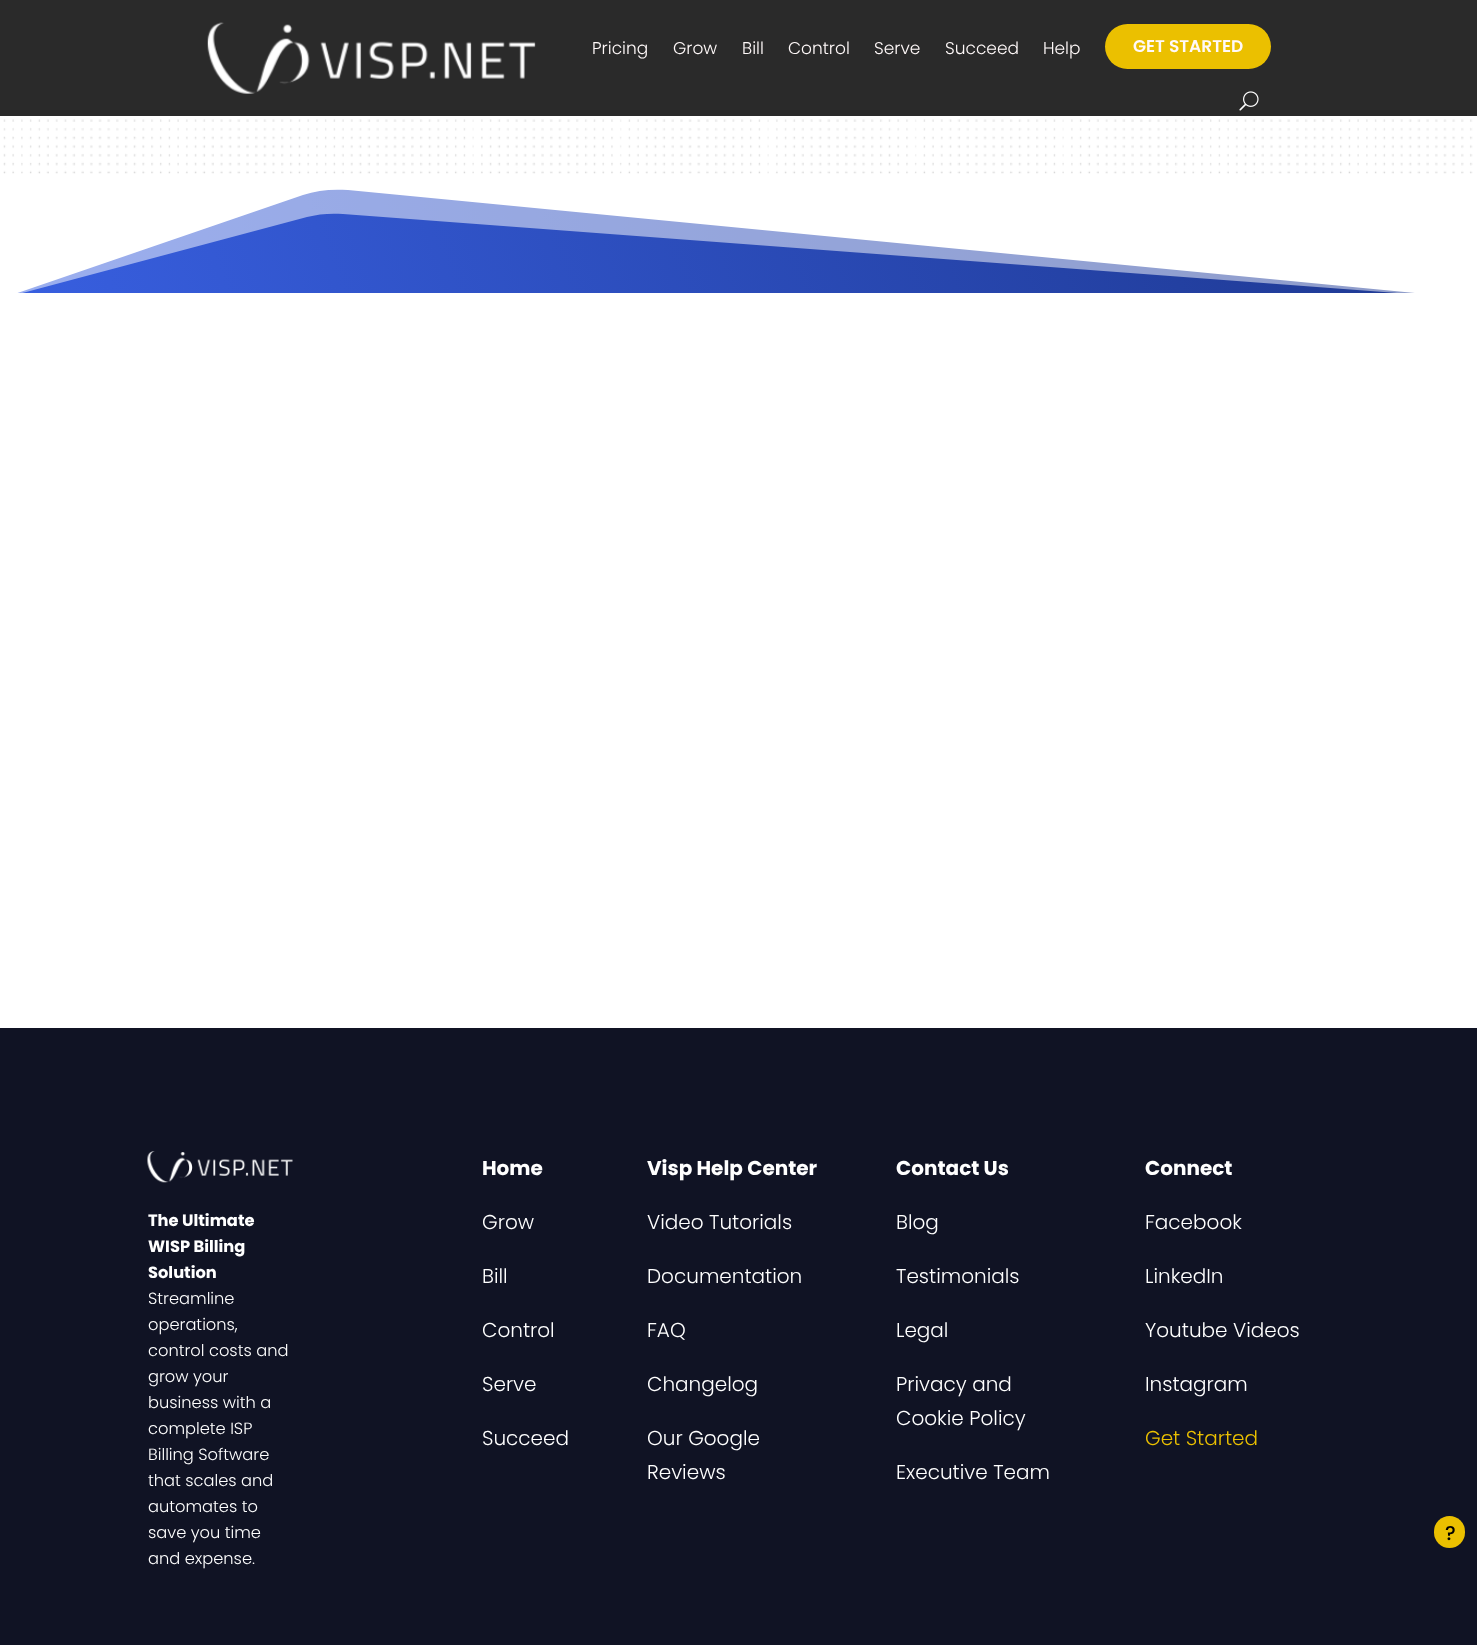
(async () => {
  const canvas = document.querySelector("canvas");
  canvas.width = 1477;
  canvas.height = 1645;
  const ctx = canvas.getContext("2d");
  ctx.miterLimit = 4;
  ctx.fontKerning = "normal";
  async function loadImage(src) {
    const img = new Image();
    img.src = src;
    await img.decode();
    return img;
  }
  let gradient, path;

  ctx.fillStyle = "#ffffff";
  ctx.fillRect(0, 0, 1477, 1645);
  ctx.fillStyle = "#2a2a2a";
  ctx.fillRect(0, 0, 1477, 116);
  ctx.drawImage(await loadImage("img/1.png"), 207, 22, 329, 72);
  ctx.fillStyle = "#ebc000";
  ctx.beginPath();
  ctx.roundRect(1105, 24, 166, 45, 22.5);
  ctx.fill();
  ctx.drawImage(await loadImage("img/2.png"), 1239, 91, 20, 20);
  ctx.drawImage(await loadImage("img/3.png"), 3, 119, 1470, 55);
  gradient = ctx.createLinearGradient(67, 478, 1410, -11);
  gradient.addColorStop(0, "#385fe0");
  gradient.addColorStop(1, "#1d378f");
  ctx.fillStyle = gradient;
  ctx.fillRect(17, 189, 1399, 104);
  ctx.fillStyle = "rgba(255, 255, 255, 0.5)";
  path = new Path2D("M0 299L307 217C318 214 331 213 343 214L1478 299V174H0Z");
  ctx.fill(path);
  ctx.fillStyle = "#ffffff";
  path = new Path2D("M0 299L303 195C317 190 332 189 348 190L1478 299V174H0Z");
  ctx.fill(path);
  ctx.fillStyle = "#101324";
  ctx.fillRect(0, 1028, 1477, 617);
  ctx.drawImage(await loadImage("img/4.png"), 147, 1151, 146, 32);
  ctx.fillStyle = "#ebc000";
  ctx.beginPath();
  ctx.roundRect(1434, 1516, 31, 32, 15.5);
  ctx.fill();
  ctx.font = "300 17px Poppins";
  ctx.fillStyle = "#fff9f9";
  for (const [text, x, y] of [
    ["Pricing", 592, 54],
    ["Grow", 673, 54],
    ["Bill", 742, 54],
    ["Control", 788, 54],
    ["Serve", 874, 54],
    ["Succeed", 945, 54],
    ["Help", 1043, 54],
  ]) {
    ctx.fillText(text, x, y);
  }
  ctx.font = "600 17px Poppins";
  ctx.fillText("GET STARTED", 1133, 52);
  ctx.font = "bold 16.25px Poppins";
  ctx.fillStyle = "#ffffff";
  for (const [text, x, y] of [
    ["The Ultimate", 148, 1226],
    ["WISP Billing", 148, 1252],
    ["Solution", 148, 1278],
  ]) {
    ctx.fillText(text, x, y);
  }
  ctx.font = "300 16.25px Poppins";
  for (const [text, x, y] of [
    ["Streamline", 148, 1304],
    ["operations,", 148, 1330],
    ["control costs and", 148, 1356],
    ["grow your", 148, 1382],
    ["business with a", 148, 1408],
    ["complete ISP", 148, 1434],
    ["Billing Software", 148, 1460],
    ["that scales and", 148, 1486],
    ["automates to", 148, 1512],
    ["save you time", 148, 1538],
    ["and expense.", 148, 1564],
  ]) {
    ctx.fillText(text, x, y);
  }
  ctx.font = "bold 20px Poppins";
  ctx.fillText("Home", 482, 1175);
  ctx.font = "300 20px Poppins";
  for (const [text, x, y] of [
    ["Grow", 482, 1229],
    ["Bill", 482, 1283],
    ["Control", 482, 1337],
    ["Serve", 482, 1391],
    ["Succeed", 482, 1445],
  ]) {
    ctx.fillText(text, x, y);
  }
  ctx.font = "bold 20px Poppins";
  ctx.fillText("Visp Help Center", 647, 1175);
  ctx.font = "300 20px Poppins";
  for (const [text, x, y] of [
    ["Video Tutorials", 647, 1229],
    ["Documentation", 647, 1283],
    ["FAQ", 647, 1337],
    ["Changelog", 647, 1391],
    ["Our Google", 647, 1445],
    ["Reviews", 647, 1479],
  ]) {
    ctx.fillText(text, x, y);
  }
  ctx.font = "bold 20px Poppins";
  ctx.fillText("Contact Us", 896, 1175);
  ctx.font = "300 20px Poppins";
  for (const [text, x, y] of [
    ["Blog", 896, 1229],
    ["Testimonials", 896, 1283],
    ["Legal", 896, 1337],
    ["Privacy and", 896, 1391],
    ["Cookie Policy", 896, 1425],
    ["Executive Team", 896, 1479],
  ]) {
    ctx.fillText(text, x, y);
  }
  ctx.font = "bold 20px Poppins";
  ctx.fillText("Connect", 1145, 1175);
  ctx.font = "300 20px Poppins";
  for (const [text, x, y] of [
    ["Facebook", 1145, 1229],
    ["LinkedIn", 1145, 1283],
    ["Youtube Videos", 1145, 1337],
    ["Instagram", 1145, 1391],
  ]) {
    ctx.fillText(text, x, y);
  }
  ctx.fillStyle = "#ebc000";
  ctx.fillText("Get Started", 1145, 1445);
  ctx.font = "500 20px Poppins";
  ctx.fillStyle = "#000000";
  ctx.fillText("?", 1445, 1540);
})();
